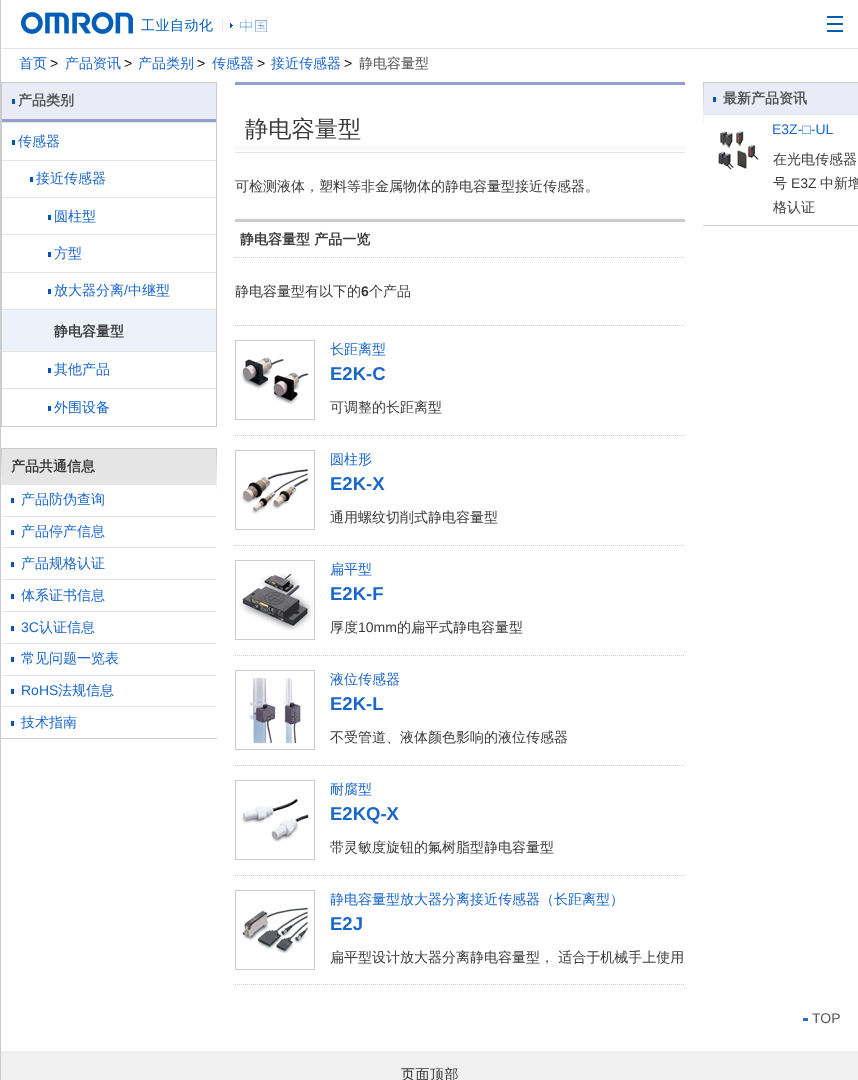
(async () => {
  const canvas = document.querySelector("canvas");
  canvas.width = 858;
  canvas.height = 1080;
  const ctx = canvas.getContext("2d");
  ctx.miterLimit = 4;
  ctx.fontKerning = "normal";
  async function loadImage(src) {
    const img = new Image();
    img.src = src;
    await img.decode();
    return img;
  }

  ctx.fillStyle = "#ffffff";
  ctx.fillRect(0, 0, 858, 1080);
  ctx.fillStyle = "#cccccc";
  ctx.fillRect(0, 0, 1, 1080);
  ctx.fillStyle = "#e6e6e6";
  ctx.fillRect(1, 48, 857, 1);
  ctx.drawImage(await loadImage("img/1.png"), 21, 12, 112, 22);
  ctx.fillRect(222, 19, 1, 12);
  ctx.drawImage(await loadImage("img/2.png"), 230, 23, 3, 5);
  for (const [x, y, w, h, color] of [
    [827, 23, 16, 2, "#005eb8"],
    [827, 16, 16, 2, "#005eb8"],
    [827, 30, 16, 2, "#005eb8"],
  ]) {
    ctx.fillStyle = color;
    ctx.fillRect(x, y, w, h);
  }
  ctx.strokeStyle = "#cccccc";
  ctx.strokeRect(1.5, 82.5, 215, 344);
  for (const [x, y, w, h, color] of [
    [2, 83, 214, 36, "#e9ecf6"],
    [2, 119, 214, 3, "#929fd0"],
    [12, 99, 3, 5, "#0056b7"],
    [2, 122, 214, 1, "#e5e5e5"],
    [12, 140, 3, 5, "#0056b7"],
    [2, 160, 214, 1, "#e5e5e5"],
    [30, 177, 3, 5, "#0056b7"],
    [2, 197, 214, 1, "#e5e5e5"],
    [48, 215, 3, 5, "#0056b7"],
    [2, 234, 214, 1, "#e5e5e5"],
    [48, 252, 3, 5, "#0056b7"],
    [2, 272, 214, 1, "#e5e5e5"],
    [48, 289, 3, 5, "#0056b7"],
    [2, 310, 214, 41, "#ebf2f9"],
    [2, 309, 214, 1, "#e5e5e5"],
    [2, 351, 214, 1, "#e5e5e5"],
    [48, 368, 3, 5, "#0056b7"],
    [2, 388, 214, 1, "#e5e5e5"],
    [48, 406, 3, 5, "#0056b7"],
  ]) {
    ctx.fillStyle = color;
    ctx.fillRect(x, y, w, h);
  }
  ctx.drawImage(await loadImage("img/3.png"), 1, 449, 216, 43);
  for (const [x, y, w, h, color] of [
    [1, 448, 216, 1, "#cccccc"],
    [1, 738, 216, 1, "#cccccc"],
    [2, 449, 214, 36, "#e5e5e5"],
    [2, 485, 214, 7, "#ffffff"],
    [11, 498, 3, 5, "#0056b7"],
    [2, 516, 214, 1, "#e5e5e5"],
    [11, 530, 3, 5, "#0056b7"],
    [2, 547, 214, 1, "#e5e5e5"],
    [11, 562, 3, 5, "#0056b7"],
    [2, 579, 214, 1, "#e5e5e5"],
    [11, 594, 3, 5, "#0056b7"],
    [2, 611, 214, 1, "#e5e5e5"],
    [11, 626, 3, 5, "#0056b7"],
    [2, 643, 214, 1, "#e5e5e5"],
    [11, 657, 3, 5, "#0056b7"],
    [2, 675, 214, 1, "#e5e5e5"],
    [11, 689, 3, 5, "#0056b7"],
    [2, 706, 214, 1, "#e5e5e5"],
    [11, 721, 3, 5, "#0056b7"],
    [235, 146, 450, 4, "#f8f8f8"],
    [235, 82, 450, 3, "#929fd0"],
    [235, 152, 450, 1, "#e5e5e5"],
  ]) {
    ctx.fillStyle = color;
    ctx.fillRect(x, y, w, h);
  }
  ctx.drawImage(await loadImage("img/4.png"), 235, 257, 449, 1);
  ctx.fillStyle = "#cccccc";
  ctx.fillRect(235, 219, 450, 3);
  ctx.drawImage(await loadImage("img/4.png"), 235, 984, 449, 1);
  ctx.drawImage(await loadImage("img/4.png"), 235, 325, 449, 1);
  ctx.strokeRect(235.5, 340.5, 79, 79);
  ctx.drawImage(await loadImage("img/5.png"), 241, 357, 68, 48);
  ctx.drawImage(await loadImage("img/4.png"), 235, 435, 449, 1);
  ctx.strokeRect(235.5, 450.5, 79, 79);
  ctx.drawImage(await loadImage("img/6.png"), 241, 469, 67, 45);
  ctx.drawImage(await loadImage("img/4.png"), 235, 545, 449, 1);
  ctx.strokeRect(235.5, 560.5, 79, 79);
  ctx.drawImage(await loadImage("img/7.png"), 239, 573, 74, 58);
  ctx.drawImage(await loadImage("img/4.png"), 235, 655, 449, 1);
  ctx.strokeRect(235.5, 670.5, 79, 79);
  ctx.drawImage(await loadImage("img/8.png"), 249, 678, 52, 66);
  ctx.drawImage(await loadImage("img/4.png"), 235, 765, 449, 1);
  ctx.strokeRect(235.5, 780.5, 79, 79);
  ctx.drawImage(await loadImage("img/9.png"), 241, 799, 68, 43);
  ctx.drawImage(await loadImage("img/4.png"), 235, 875, 449, 1);
  ctx.strokeRect(235.5, 890.5, 79, 79);
  ctx.drawImage(await loadImage("img/10.png"), 242, 907, 66, 47);
  ctx.drawImage(await loadImage("img/11.png"), 703, 83, 1, 43);
  for (const [x, y, w, h, color] of [
    [703, 82, 155, 1, "#cccccc"],
    [703, 225, 155, 1, "#cccccc"],
    [704, 83, 154, 31, "#e9ecf6"],
    [713, 97, 3, 5, "#0056b7"],
    [704, 114, 154, 1, "#e5e5e5"],
  ]) {
    ctx.fillStyle = color;
    ctx.fillRect(x, y, w, h);
  }
  ctx.drawImage(await loadImage("img/12.png"), 718, 131, 41, 39);
  ctx.fillStyle = "#266ecd";
  ctx.fillRect(803, 1018, 5, 3);
  ctx.fillStyle = "#f0f0f0";
  ctx.fillRect(1, 1051, 857, 29);
  ctx.letterSpacing = "0.5px";
  ctx.font = "500 14px WenQuanYi Zen Hei";
  ctx.fillStyle = "#005eb8";
  ctx.fillText("工业自动化", 141, 30);
  ctx.letterSpacing = "1px";
  ctx.font = "100 14px Noto Sans SC";
  ctx.fillStyle = "#1a66ca";
  ctx.fillText("中国", 239, 31);
  ctx.letterSpacing = "0px";
  ctx.font = "500 14px WenQuanYi Zen Hei";
  ctx.fillText("首页", 19, 68);
  ctx.font = "14px Liberation Sans";
  ctx.fillStyle = "#000000";
  ctx.fillText(">", 50, 68);
  ctx.font = "500 14px WenQuanYi Zen Hei";
  ctx.fillStyle = "#1a66ca";
  ctx.fillText("产品资讯", 65, 68);
  ctx.font = "14px Liberation Sans";
  ctx.fillStyle = "#000000";
  ctx.fillText(">", 124, 68);
  ctx.font = "500 14px WenQuanYi Zen Hei";
  ctx.fillStyle = "#1a66ca";
  ctx.fillText("产品类别", 138, 68);
  ctx.font = "14px Liberation Sans";
  ctx.fillStyle = "#000000";
  ctx.fillText(">", 197, 68);
  ctx.font = "500 14px WenQuanYi Zen Hei";
  ctx.fillStyle = "#1a66ca";
  ctx.fillText("传感器", 212, 68);
  ctx.font = "14px Liberation Sans";
  ctx.fillStyle = "#000000";
  ctx.fillText(">", 257, 68);
  ctx.font = "500 14px WenQuanYi Zen Hei";
  ctx.fillStyle = "#1a66ca";
  ctx.fillText("接近传感器", 271, 68);
  ctx.font = "14px Liberation Sans";
  ctx.fillStyle = "#000000";
  ctx.fillText(">", 344, 68);
  ctx.font = "500 14px WenQuanYi Zen Hei";
  ctx.fillStyle = "#555555";
  ctx.fillText("静电容量型", 359, 68);
  ctx.font = "bold 14px WenQuanYi Zen Hei";
  ctx.fillText("产品类别", 18, 105);
  ctx.font = "500 14px WenQuanYi Zen Hei";
  ctx.fillStyle = "#1a66ca";
  for (const [text, x, y] of [
    ["传感器", 18, 146],
    ["接近传感器", 36, 183],
    ["圆柱型", 54, 221],
    ["方型", 54, 258],
    ["放大器分离", 54, 295],
  ]) {
    ctx.fillText(text, x, y);
  }
  ctx.font = "14px Liberation Sans";
  ctx.fillText("/", 124, 295);
  ctx.font = "500 14px WenQuanYi Zen Hei";
  ctx.fillText("中继型", 128, 295);
  ctx.font = "bold 14px WenQuanYi Zen Hei";
  ctx.fillStyle = "#3b3b3b";
  ctx.fillText("静电容量型", 54, 336);
  ctx.font = "500 14px WenQuanYi Zen Hei";
  ctx.fillStyle = "#1a66ca";
  ctx.fillText("其他产品", 54, 374);
  ctx.fillText("外围设备", 54, 412);
  ctx.font = "bold 14px WenQuanYi Zen Hei";
  ctx.fillStyle = "#3b3b3b";
  ctx.fillText("产品共通信息", 11, 471);
  ctx.font = "500 14px WenQuanYi Zen Hei";
  ctx.fillStyle = "#1a66ca";
  for (const [text, x, y] of [
    ["产品防伪查询", 21, 504],
    ["产品停产信息", 21, 536],
    ["产品规格认证", 21, 568],
    ["体系证书信息", 21, 600],
  ]) {
    ctx.fillText(text, x, y);
  }
  ctx.font = "14px Liberation Sans";
  ctx.fillText("3C", 21, 632);
  ctx.font = "500 14px WenQuanYi Zen Hei";
  ctx.fillText("认证信息", 39, 632);
  ctx.fillText("常见问题一览表", 21, 663);
  ctx.font = "14px Liberation Sans";
  ctx.fillText("RoHS", 21, 695);
  ctx.font = "500 14px WenQuanYi Zen Hei";
  ctx.fillText("法规信息", 58, 695);
  ctx.fillText("技术指南", 21, 727);
  ctx.font = "500 23.25px WenQuanYi Zen Hei";
  ctx.fillStyle = "#3b3b3b";
  ctx.fillText("静电容量型", 245, 137);
  ctx.font = "500 14px WenQuanYi Zen Hei";
  ctx.fillText("可检测液体，塑料等非金属物体的静电容量型接近传感器。", 235, 191);
  ctx.font = "bold 14px WenQuanYi Zen Hei";
  ctx.fillText("静电容量型 产品一览", 240, 244);
  ctx.font = "500 14px WenQuanYi Zen Hei";
  ctx.fillText("静电容量型有以下的", 235, 296);
  ctx.font = "bold 14px Liberation Sans";
  ctx.fillText("6", 361, 296);
  ctx.font = "500 14px WenQuanYi Zen Hei";
  ctx.fillText("个产品", 369, 296);
  ctx.fillStyle = "#1a66ca";
  ctx.fillText("长距离型", 330, 354);
  ctx.font = "bold 18.5px Liberation Sans";
  ctx.fillText("E2K-C", 330, 380);
  ctx.font = "500 14px WenQuanYi Zen Hei";
  ctx.fillStyle = "#3b3b3b";
  ctx.fillText("可调整的长距离型", 330, 412);
  ctx.fillStyle = "#1a66ca";
  ctx.fillText("圆柱形", 330, 464);
  ctx.font = "bold 18.5px Liberation Sans";
  ctx.fillText("E2K-X", 330, 490);
  ctx.font = "500 14px WenQuanYi Zen Hei";
  ctx.fillStyle = "#3b3b3b";
  ctx.fillText("通用螺纹切削式静电容量型", 330, 522);
  ctx.fillStyle = "#1a66ca";
  ctx.fillText("扁平型", 330, 574);
  ctx.font = "bold 18.5px Liberation Sans";
  ctx.fillText("E2K-F", 330, 600);
  ctx.font = "500 14px WenQuanYi Zen Hei";
  ctx.fillStyle = "#3b3b3b";
  ctx.fillText("厚度", 330, 632);
  ctx.font = "14px Liberation Sans";
  ctx.fillText("10mm", 358, 632);
  ctx.font = "500 14px WenQuanYi Zen Hei";
  ctx.fillText("的扁平式静电容量型", 397, 632);
  ctx.fillStyle = "#1a66ca";
  ctx.fillText("液位传感器", 330, 684);
  ctx.font = "bold 18.5px Liberation Sans";
  ctx.fillText("E2K-L", 330, 710);
  ctx.font = "500 14px WenQuanYi Zen Hei";
  ctx.fillStyle = "#3b3b3b";
  ctx.fillText("不受管道、液体颜色影响的液位传感器", 330, 742);
  ctx.fillStyle = "#1a66ca";
  ctx.fillText("耐腐型", 330, 794);
  ctx.font = "bold 18.5px Liberation Sans";
  ctx.fillText("E2KQ-X", 330, 820);
  ctx.font = "500 14px WenQuanYi Zen Hei";
  ctx.fillStyle = "#3b3b3b";
  ctx.fillText("带灵敏度旋钮的氟树脂型静电容量型", 330, 852);
  ctx.fillStyle = "#1a66ca";
  ctx.fillText("静电容量型放大器分离接近传感器（长距离型）", 330, 904);
  ctx.font = "bold 18.5px Liberation Sans";
  ctx.fillText("E2J", 330, 930);
  ctx.font = "500 14px WenQuanYi Zen Hei";
  ctx.fillStyle = "#3b3b3b";
  ctx.fillText("扁平型设计放大器分离静电容量型， 适合于机械手上使用", 330, 962);
  ctx.font = "bold 14px WenQuanYi Zen Hei";
  ctx.fillStyle = "#555555";
  ctx.fillText("最新产品资讯", 723, 103);
  ctx.font = "14px Liberation Sans";
  ctx.fillStyle = "#1a66ca";
  ctx.fillText("E3Z-□-UL", 772, 134);
  ctx.font = "500 14px WenQuanYi Zen Hei";
  ctx.fillStyle = "#3b3b3b";
  ctx.fillText("在光电传感器", 773, 164);
  ctx.fillText("号", 773, 188);
  ctx.font = "14px Liberation Sans";
  ctx.fillText("E3Z", 791, 188);
  ctx.font = "500 14px WenQuanYi Zen Hei";
  ctx.fillText("中新增", 820, 188);
  ctx.fillText("格认证", 773, 212);
  ctx.font = "14px Liberation Sans";
  ctx.fillStyle = "#555555";
  ctx.fillText("TOP", 812, 1023);
  ctx.letterSpacing = "0.5px";
  ctx.font = "500 14px WenQuanYi Zen Hei";
  ctx.fillStyle = "#333333";
  ctx.fillText("页面顶部", 401, 1079);
})();
